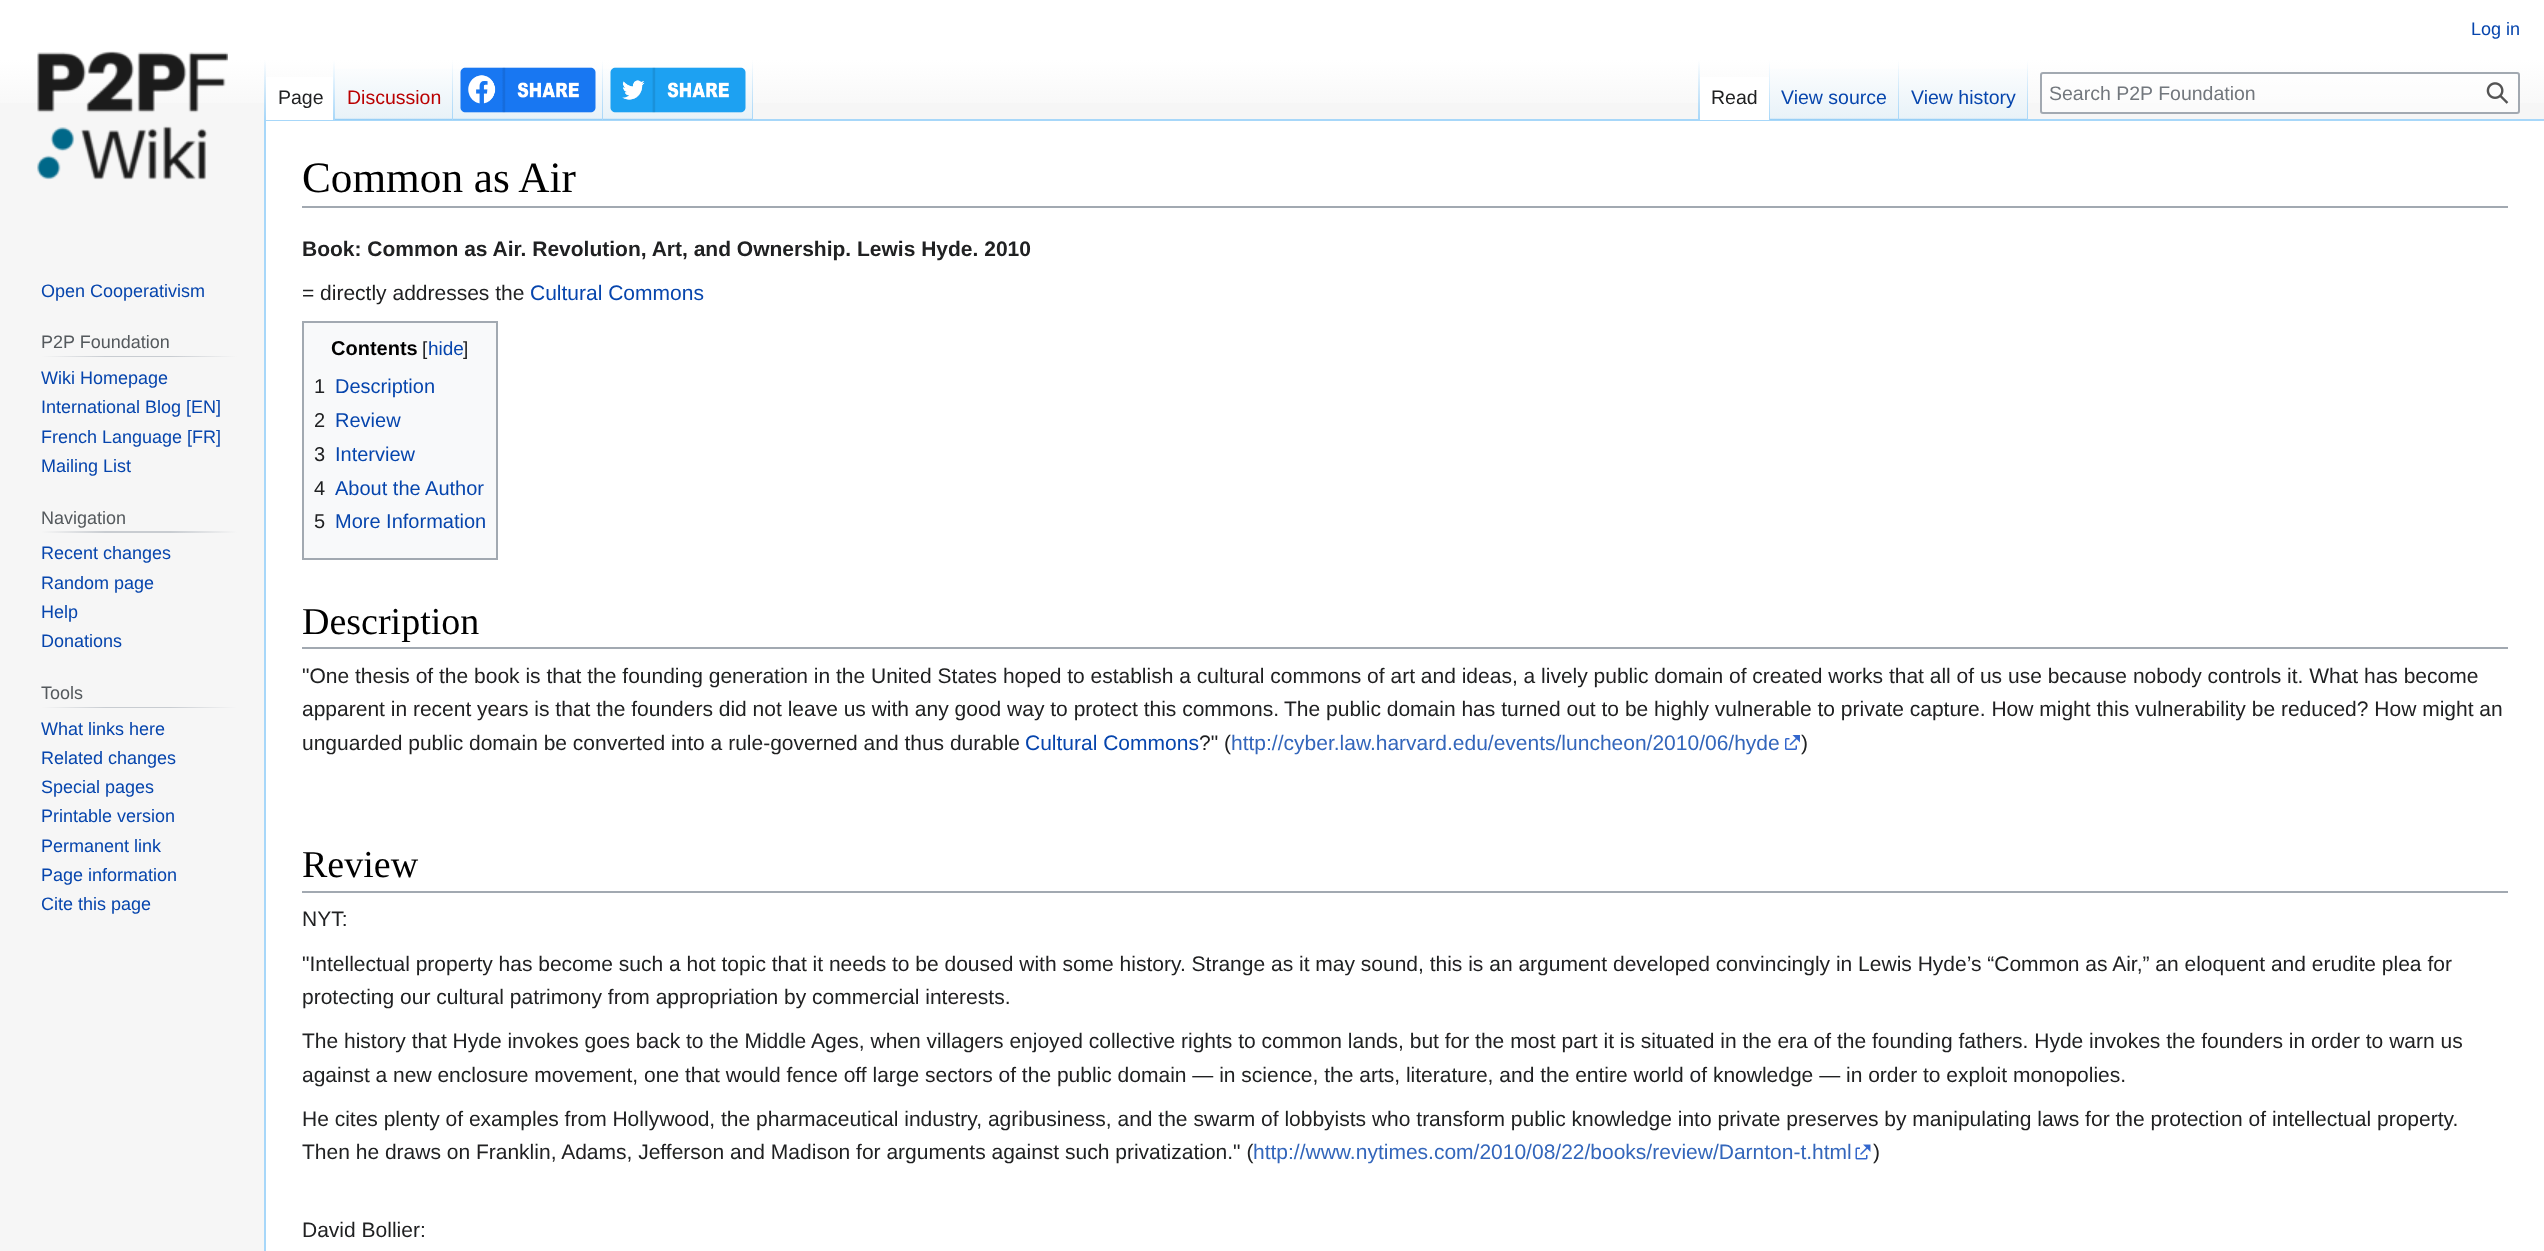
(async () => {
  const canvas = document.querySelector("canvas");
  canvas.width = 2544;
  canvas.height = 1251;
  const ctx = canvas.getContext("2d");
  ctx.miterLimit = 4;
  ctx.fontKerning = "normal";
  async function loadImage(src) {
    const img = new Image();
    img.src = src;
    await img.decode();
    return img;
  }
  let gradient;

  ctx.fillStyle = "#f6f6f6";
  ctx.fillRect(0, 0, 2544, 1251);
  gradient = ctx.createLinearGradient(1272, 0, 1272, 120);
  gradient.addColorStop(0.5, "#ffffff");
  gradient.addColorStop(1, "#f6f6f6");
  ctx.fillStyle = gradient;
  ctx.fillRect(0, 0, 2544, 103);
  ctx.fillStyle = "#a7d7f9";
  ctx.fillRect(264, 119, 2280, 2);
  ctx.fillRect(264, 119, 2, 1132);
  gradient = ctx.createLinearGradient(265, 60, 265, 120);
  gradient.addColorStop(0, "rgba(167, 215, 249, 0)");
  gradient.addColorStop(1, "#a7d7f9");
  ctx.fillStyle = gradient;
  ctx.fillRect(264, 60, 2, 60);
  ctx.fillStyle = "#ffffff";
  ctx.fillRect(266, 77, 67, 43);
  gradient = ctx.createLinearGradient(334, 60, 334, 120);
  gradient.addColorStop(0, "#ffffff");
  gradient.addColorStop(1, "#a7d7f9");
  ctx.fillStyle = gradient;
  ctx.fillRect(333, 60, 2, 60);
  gradient = ctx.createLinearGradient(394, 120, 394, 60);
  gradient.addColorStop(0, "#77c1f6");
  gradient.addColorStop(0.03, "#e8f2f8");
  gradient.addColorStop(1, "#ffffff");
  ctx.fillStyle = gradient;
  ctx.fillRect(335, 69, 118, 51);
  gradient = ctx.createLinearGradient(452, 60, 452, 120);
  gradient.addColorStop(0, "rgba(167, 215, 249, 0)");
  gradient.addColorStop(1, "#a7d7f9");
  ctx.fillStyle = gradient;
  ctx.fillRect(452, 60, 1, 60);
  gradient = ctx.createLinearGradient(528, 120, 528, 60);
  gradient.addColorStop(0, "#77c1f6");
  gradient.addColorStop(0.03, "#e8f2f8");
  gradient.addColorStop(1, "#ffffff");
  ctx.fillStyle = gradient;
  ctx.fillRect(453, 69, 150, 51);
  gradient = ctx.createLinearGradient(602, 60, 602, 120);
  gradient.addColorStop(0, "rgba(167, 215, 249, 0)");
  gradient.addColorStop(1, "#a7d7f9");
  ctx.fillStyle = gradient;
  ctx.fillRect(602, 60, 1, 60);
  ctx.drawImage(await loadImage("img/1.png"), 460, 67, 136, 46);
  gradient = ctx.createLinearGradient(678, 120, 678, 60);
  gradient.addColorStop(0, "#77c1f6");
  gradient.addColorStop(0.03, "#e8f2f8");
  gradient.addColorStop(1, "#ffffff");
  ctx.fillStyle = gradient;
  ctx.fillRect(603, 69, 150, 51);
  gradient = ctx.createLinearGradient(752, 60, 752, 120);
  gradient.addColorStop(0, "rgba(167, 215, 249, 0)");
  gradient.addColorStop(1, "#a7d7f9");
  ctx.fillStyle = gradient;
  ctx.fillRect(752, 60, 1, 60);
  ctx.drawImage(await loadImage("img/2.png"), 610, 67, 136, 46);
  gradient = ctx.createLinearGradient(1699, 60, 1699, 120);
  gradient.addColorStop(0, "rgba(167, 215, 249, 0)");
  gradient.addColorStop(1, "#a7d7f9");
  ctx.fillStyle = gradient;
  ctx.fillRect(1698, 60, 2, 60);
  ctx.fillStyle = "#ffffff";
  ctx.fillRect(1700, 77, 69, 43);
  gradient = ctx.createLinearGradient(1769, 60, 1769, 120);
  gradient.addColorStop(0, "#ffffff");
  gradient.addColorStop(1, "#a7d7f9");
  ctx.fillStyle = gradient;
  ctx.fillRect(1769, 60, 1, 60);
  gradient = ctx.createLinearGradient(1835, 120, 1835, 60);
  gradient.addColorStop(0, "#77c1f6");
  gradient.addColorStop(0.03, "#e8f2f8");
  gradient.addColorStop(1, "#ffffff");
  ctx.fillStyle = gradient;
  ctx.fillRect(1770, 69, 129, 51);
  gradient = ctx.createLinearGradient(1898, 60, 1898, 120);
  gradient.addColorStop(0, "rgba(167, 215, 249, 0)");
  gradient.addColorStop(1, "#a7d7f9");
  ctx.fillStyle = gradient;
  ctx.fillRect(1898, 60, 1, 60);
  gradient = ctx.createLinearGradient(1964, 120, 1964, 60);
  gradient.addColorStop(0, "#77c1f6");
  gradient.addColorStop(0.03, "#e8f2f8");
  gradient.addColorStop(1, "#ffffff");
  ctx.fillStyle = gradient;
  ctx.fillRect(1899, 69, 129, 51);
  gradient = ctx.createLinearGradient(2027, 60, 2027, 120);
  gradient.addColorStop(0, "rgba(167, 215, 249, 0)");
  gradient.addColorStop(1, "#a7d7f9");
  ctx.fillStyle = gradient;
  ctx.fillRect(2027, 60, 1, 60);
  ctx.fillStyle = "rgba(255, 255, 255, 0.5)";
  ctx.beginPath();
  ctx.roundRect(2041, 73, 478, 40, 2);
  ctx.fill();
  ctx.strokeStyle = "#a2a9b1";
  ctx.lineWidth = 2;
  ctx.stroke();
  ctx.drawImage(await loadImage("img/3.png"), 2486, 82, 23, 22);
  ctx.drawImage(await loadImage("img/4.png"), 37, 51, 191, 129);
  gradient = ctx.createLinearGradient(41, 356, 237, 356);
  gradient.addColorStop(0, "#f6f6f6");
  gradient.addColorStop(0.33, "#c8ccd1");
  gradient.addColorStop(0.66, "#c8ccd1");
  gradient.addColorStop(1, "#f6f6f6");
  ctx.fillStyle = gradient;
  ctx.fillRect(41, 356, 196, 1);
  gradient = ctx.createLinearGradient(41, 532, 237, 532);
  gradient.addColorStop(0, "#f6f6f6");
  gradient.addColorStop(0.33, "#c8ccd1");
  gradient.addColorStop(0.66, "#c8ccd1");
  gradient.addColorStop(1, "#f6f6f6");
  ctx.fillStyle = gradient;
  ctx.fillRect(41, 531, 196, 2);
  gradient = ctx.createLinearGradient(41, 707, 237, 707);
  gradient.addColorStop(0, "#f6f6f6");
  gradient.addColorStop(0.33, "#c8ccd1");
  gradient.addColorStop(0.66, "#c8ccd1");
  gradient.addColorStop(1, "#f6f6f6");
  ctx.fillStyle = gradient;
  ctx.fillRect(41, 707, 196, 1);
  ctx.fillStyle = "#ffffff";
  ctx.fillRect(266, 121, 2278, 1130);
  ctx.fillStyle = "#a2a9b1";
  ctx.fillRect(302, 206, 2206, 2);
  ctx.fillStyle = "#f8f9fa";
  ctx.beginPath();
  ctx.rect(303, 322, 194, 237);
  ctx.fill();
  ctx.stroke();
  ctx.fillStyle = "#a2a9b1";
  ctx.fillRect(302, 647, 2206, 2);
  ctx.drawImage(await loadImage("img/5.png"), 1785, 735, 15, 15);
  ctx.fillRect(302, 891, 2206, 2);
  ctx.drawImage(await loadImage("img/6.png"), 1855, 1144, 16, 16);
  ctx.font = "18px Liberation Sans";
  ctx.fillStyle = "#0645ad";
  ctx.fillText("Log in", 2471, 35);
  ctx.font = "19.5px Liberation Sans";
  ctx.fillStyle = "#202122";
  ctx.fillText("Page", 278, 104);
  ctx.fillStyle = "#ba0000";
  ctx.fillText("Discussion", 347, 104);
  ctx.fillStyle = "#202122";
  ctx.fillText("Read", 1711, 104);
  ctx.fillStyle = "#0645ad";
  ctx.fillText("View source", 1781, 104);
  ctx.fillText("View history", 1911, 104);
  ctx.fillStyle = "#72777d";
  ctx.fillText("Search P2P Foundation", 2049, 100);
  ctx.font = "18px Liberation Sans";
  ctx.fillStyle = "#0645ad";
  ctx.fillText("Open Cooperativism", 41, 297);
  ctx.fillStyle = "#54595d";
  ctx.fillText("P2P Foundation", 41, 348);
  ctx.fillStyle = "#0645ad";
  for (const [text, x, y] of [
    ["Wiki Homepage", 41, 384],
    ["International Blog [EN]", 41, 413],
    ["French Language [FR]", 41, 443],
    ["Mailing List", 41, 472],
  ]) {
    ctx.fillText(text, x, y);
  }
  ctx.fillStyle = "#54595d";
  ctx.fillText("Navigation", 41, 524);
  ctx.fillStyle = "#0645ad";
  for (const [text, x, y] of [
    ["Recent changes", 41, 559],
    ["Random page", 41, 589],
    ["Help", 41, 618],
    ["Donations", 41, 647],
  ]) {
    ctx.fillText(text, x, y);
  }
  ctx.fillStyle = "#54595d";
  ctx.fillText("Tools", 41, 699);
  ctx.fillStyle = "#0645ad";
  for (const [text, x, y] of [
    ["What links here", 41, 735],
    ["Related changes", 41, 764],
    ["Special pages", 41, 793],
    ["Printable version", 41, 822],
    ["Permanent link", 41, 852],
    ["Page information", 41, 881],
    ["Cite this page", 41, 910],
  ]) {
    ctx.fillText(text, x, y);
  }
  ctx.font = "43.25px Liberation Serif";
  ctx.fillStyle = "#000000";
  ctx.fillText("Common as Air", 302, 192);
  ctx.font = "bold 21px Liberation Sans";
  ctx.fillStyle = "#202122";
  ctx.fillText("Book: Common as Air. Revolution, Art, and Ownership. Lewis Hyde. 2010", 302, 256);
  ctx.font = "21px Liberation Sans";
  ctx.fillText("= directly addresses the", 302, 300);
  ctx.fillStyle = "#0645ad";
  ctx.fillText("Cultural Commons", 530, 300);
  ctx.font = "bold 20px Liberation Sans";
  ctx.fillStyle = "#000000";
  ctx.fillText("Contents", 331, 355);
  ctx.font = "19px Liberation Sans";
  ctx.fillStyle = "#202122";
  ctx.fillText("[", 422, 355);
  ctx.fillStyle = "#0645ad";
  ctx.fillText("hide", 428, 355);
  ctx.fillStyle = "#202122";
  ctx.fillText("]", 463, 355);
  ctx.font = "20px Liberation Sans";
  ctx.fillText("1", 314, 393);
  ctx.fillStyle = "#0645ad";
  ctx.fillText("Description", 335, 393);
  ctx.fillStyle = "#202122";
  ctx.fillText("2", 314, 427);
  ctx.fillStyle = "#0645ad";
  ctx.fillText("Review", 335, 427);
  ctx.fillStyle = "#202122";
  ctx.fillText("3", 314, 461);
  ctx.fillStyle = "#0645ad";
  ctx.fillText("Interview", 335, 461);
  ctx.fillStyle = "#202122";
  ctx.fillText("4", 314, 495);
  ctx.fillStyle = "#0645ad";
  ctx.fillText("About the Author", 335, 495);
  ctx.fillStyle = "#202122";
  ctx.fillText("5", 314, 528);
  ctx.fillStyle = "#0645ad";
  ctx.fillText("More Information", 335, 528);
  ctx.font = "38px Liberation Serif";
  ctx.fillStyle = "#000000";
  ctx.fillText("Description", 302, 634);
  ctx.font = "21px Liberation Sans";
  ctx.fillStyle = "#202122";
  for (const [text, x, y] of [
    ["\"One thesis of the book is that the founding generation in the United States hoped to establish a cultural commons of art and ideas, a lively public domain of created works that all of us use because nobody controls it. What has become", 302, 683],
    ["apparent in recent years is that the founders did not leave us with any good way to protect this commons.", 302, 716],
    ["The public domain has turned out to be highly vulnerable to private capture. How might this vulnerability be reduced? How might an", 1284, 716],
    ["unguarded public domain be converted into a rule-governed and thus durable", 302, 750],
  ]) {
    ctx.fillText(text, x, y);
  }
  ctx.fillStyle = "#0645ad";
  ctx.fillText("Cultural Commons", 1025, 750);
  ctx.fillStyle = "#202122";
  ctx.fillText("?\" (", 1199, 750);
  ctx.fillStyle = "#3366bb";
  ctx.fillText("http://cyber.law.harvard.edu/events/luncheon/2010/06/hyde", 1231, 750);
  ctx.fillStyle = "#202122";
  ctx.fillText(")", 1801, 750);
  ctx.font = "38px Liberation Serif";
  ctx.fillStyle = "#000000";
  ctx.fillText("Review", 302, 877);
  ctx.font = "21px Liberation Sans";
  ctx.fillStyle = "#202122";
  for (const [text, x, y] of [
    ["NYT:", 302, 926],
    ["\"Intellectual property has become such a hot topic that it needs to be doused with some history. Strange as it may sound, this is an argument developed convincingly in Lewis Hyde’s “Common as Air,” an eloquent and erudite plea for", 302, 971],
    ["protecting our cultural patrimony from appropriation by commercial interests.", 302, 1004],
    ["The history that Hyde invokes goes back to the Middle Ages, when villagers enjoyed collective rights to common lands, but for the most part it is situated in the era of the founding fathers. Hyde invokes the founders in order to warn us", 302, 1048],
    ["against a new enclosure movement, one that would fence off large sectors of the public domain — in science, the arts, literature, and the entire world of knowledge — in order to exploit monopolies.", 302, 1082],
    ["He cites plenty of examples from Hollywood, the pharmaceutical industry, agribusiness, and the swarm of lobbyists who transform public knowledge into private preserves by manipulating laws for the protection of intellectual property.", 302, 1126],
    ["Then he draws on Franklin, Adams, Jefferson and Madison for arguments against such privatization.\" (", 302, 1159],
  ]) {
    ctx.fillText(text, x, y);
  }
  ctx.fillStyle = "#3366bb";
  ctx.fillText("http://www.nytimes.com/2010/08/22/books/review/Darnton-t.html", 1253, 1159);
  ctx.fillStyle = "#202122";
  ctx.fillText(")", 1873, 1159);
  ctx.fillText("David Bollier:", 302, 1237);
})();
